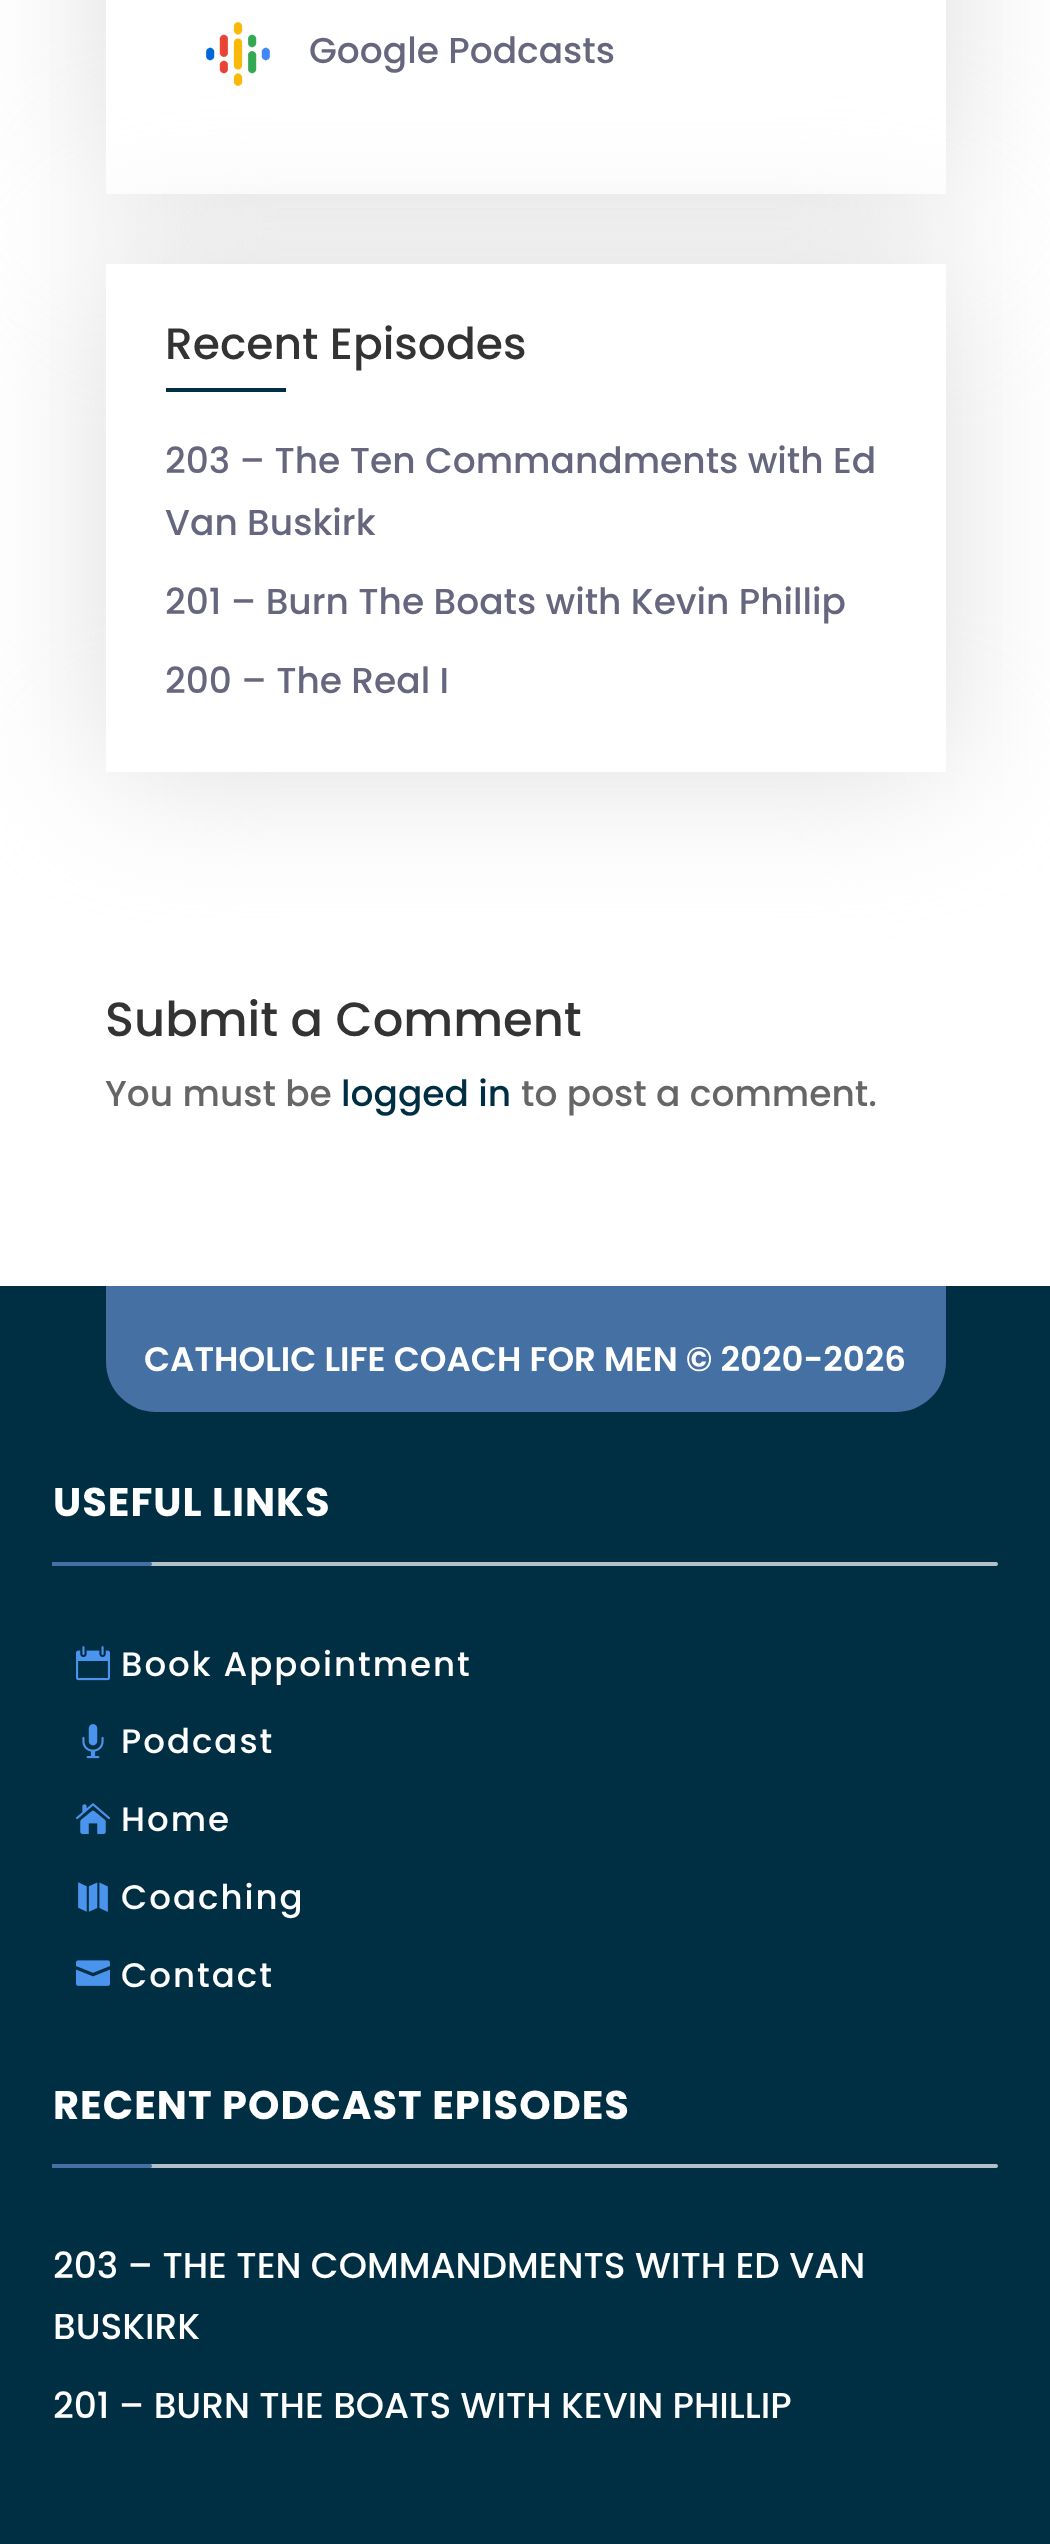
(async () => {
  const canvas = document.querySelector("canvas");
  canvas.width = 1050;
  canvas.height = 2544;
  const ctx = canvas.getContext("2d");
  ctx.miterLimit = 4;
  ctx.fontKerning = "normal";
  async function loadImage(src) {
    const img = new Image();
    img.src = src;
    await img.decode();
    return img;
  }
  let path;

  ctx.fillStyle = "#ffffff";
  ctx.fillRect(0, 0, 1050, 2544);
  ctx.save();
  path = new Path2D("M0 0H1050V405H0ZM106-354H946V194H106Z");
  ctx.clip(path, "evenodd");
  ctx.fillStyle = "#dddddd";
  ctx.filter = "blur(70px)";
  ctx.beginPath();
  ctx.rect(106, -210, 840, 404);
  ctx.fill();
  ctx.filter = "none";
  ctx.restore();
  ctx.drawImage(await loadImage("img/1.png"), 206, 22, 64, 64);
  ctx.fillStyle = "#dddddd";
  ctx.filter = "blur(70px)";
  ctx.beginPath();
  ctx.rect(106, 264, 840, 508);
  ctx.fill();
  ctx.filter = "none";
  for (const [x, y, w, h, color] of [
    [106, 264, 840, 508, "#ffffff"],
    [166, 388, 120, 4, "#002e43"],
    [0, 1286, 1050, 1258, "#002e43"],
  ]) {
    ctx.fillStyle = color;
    ctx.fillRect(x, y, w, h);
  }
  ctx.fillStyle = "#4470a3";
  ctx.beginPath();
  ctx.roundRect(106, 1286, 840, 126, [0, 0, 50, 50]);
  ctx.fill();
  ctx.fillStyle = "#b3c0c7";
  ctx.beginPath();
  ctx.roundRect(52, 1562, 946, 4, 2);
  ctx.fill();
  ctx.fillStyle = "#4470a3";
  ctx.beginPath();
  ctx.roundRect(52, 1562, 100, 4, 2);
  ctx.fill();
  ctx.drawImage(await loadImage("img/2.png"), 76, 1646, 34, 35);
  ctx.drawImage(await loadImage("img/3.png"), 82, 1724, 22, 35);
  ctx.drawImage(await loadImage("img/4.png"), 76, 1803, 34, 31);
  ctx.drawImage(await loadImage("img/5.png"), 78, 1882, 30, 30);
  ctx.drawImage(await loadImage("img/6.png"), 76, 1960, 34, 26);
  ctx.fillStyle = "#b3c0c7";
  ctx.beginPath();
  ctx.roundRect(52, 2164, 946, 4, 2);
  ctx.fill();
  ctx.fillStyle = "#4470a3";
  ctx.beginPath();
  ctx.roundRect(52, 2164, 100, 4, 2);
  ctx.fill();
  ctx.font = "500 36px Poppins";
  ctx.fillStyle = "#66667f";
  ctx.fillText("Google Podcasts", 309, 63);
  ctx.font = "500 44px Poppins";
  ctx.fillStyle = "#333333";
  ctx.fillText("Recent Episodes", 165, 359);
  ctx.font = "500 36px Poppins";
  ctx.fillStyle = "#66667f";
  for (const [text, x, y] of [
    ["203 – The Ten Commandments with Ed", 165, 473],
    ["Van Buskirk", 165, 535],
    ["201 – Burn The Boats with Kevin Phillip", 165, 614],
    ["200 – The Real I", 165, 693],
  ]) {
    ctx.fillText(text, x, y);
  }
  ctx.font = "500 48px Poppins";
  ctx.fillStyle = "#333333";
  ctx.fillText("Submit a Comment", 105, 1036);
  ctx.font = "500 36px Poppins";
  ctx.fillStyle = "#666666";
  ctx.fillText("You must be", 105, 1106);
  ctx.fillStyle = "#002e43";
  ctx.fillText("logged in", 341, 1106);
  ctx.fillStyle = "#666666";
  ctx.fillText("to post a comment.", 521, 1106);
  ctx.font = "600 34px Poppins";
  ctx.fillStyle = "#ffffff";
  ctx.fillText("CATHOLIC LIFE COACH FOR MEN © 2020-2026", 144, 1371);
  ctx.letterSpacing = "1px";
  ctx.font = "bold 40px Poppins";
  ctx.fillText("USEFUL LINKS", 53, 1516);
  ctx.letterSpacing = "2px";
  ctx.font = "500 34px Poppins";
  for (const [text, x, y] of [
    ["Book Appointment", 121, 1676],
    ["Podcast", 121, 1753],
    ["Home", 121, 1831],
    ["Coaching", 121, 1909],
    ["Contact", 121, 1987],
  ]) {
    ctx.fillText(text, x, y);
  }
  ctx.letterSpacing = "1px";
  ctx.font = "bold 40px Poppins";
  ctx.fillText("RECENT PODCAST EPISODES", 53, 2119);
  ctx.letterSpacing = "0px";
  ctx.font = "500 36px Poppins";
  for (const [text, x, y] of [
    ["203 – THE TEN COMMANDMENTS WITH ED VAN", 53, 2278],
    ["BUSKIRK", 53, 2339],
    ["201 – BURN THE BOATS WITH KEVIN PHILLIP", 53, 2418],
  ]) {
    ctx.fillText(text, x, y);
  }
})();
